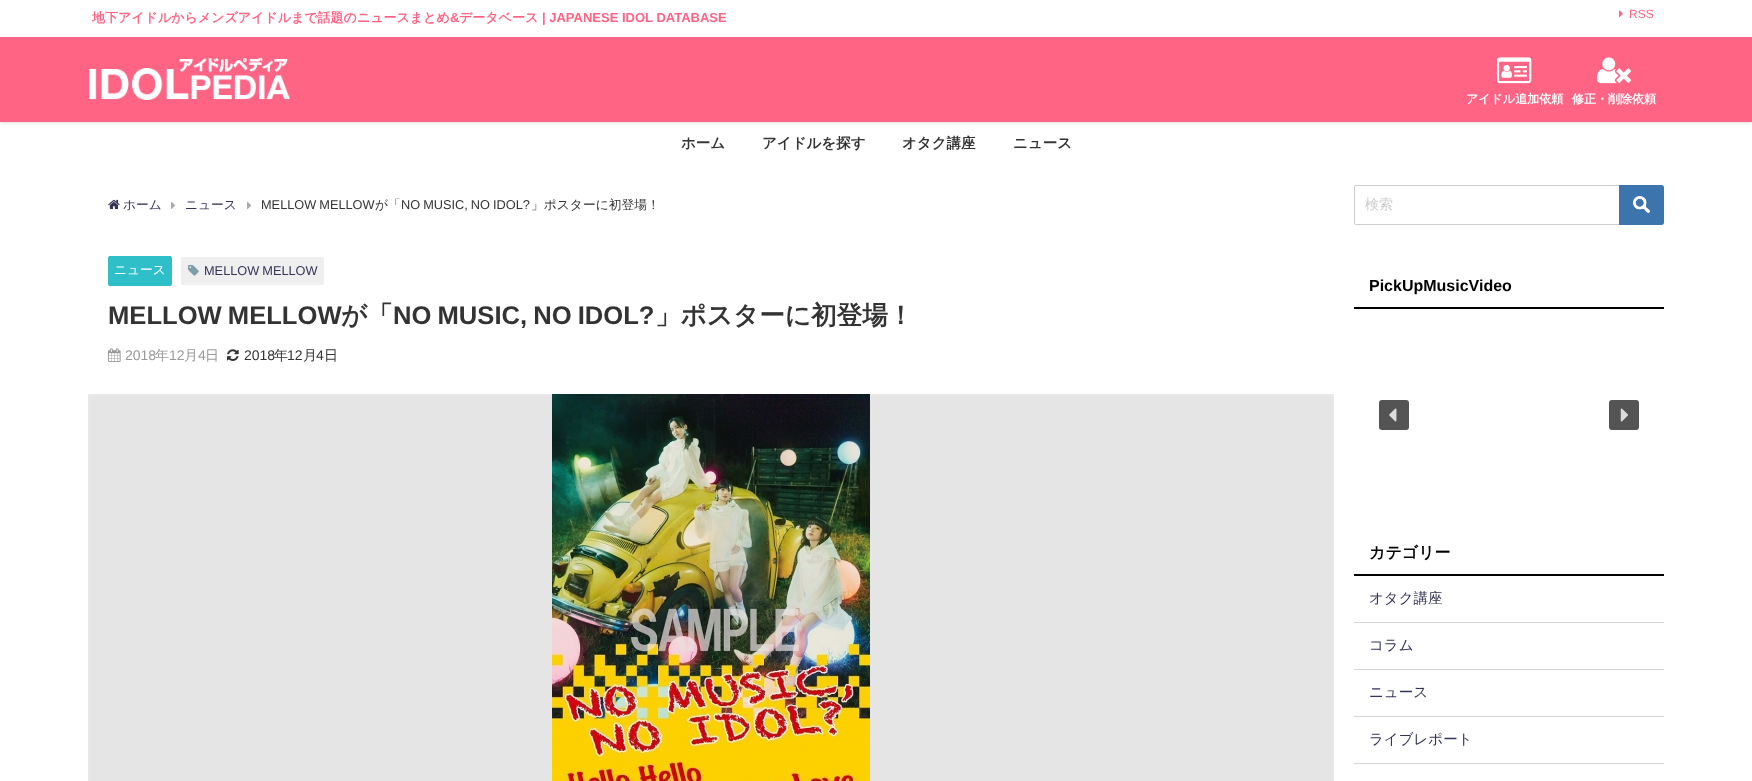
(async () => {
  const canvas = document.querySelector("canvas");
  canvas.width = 1752;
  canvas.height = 781;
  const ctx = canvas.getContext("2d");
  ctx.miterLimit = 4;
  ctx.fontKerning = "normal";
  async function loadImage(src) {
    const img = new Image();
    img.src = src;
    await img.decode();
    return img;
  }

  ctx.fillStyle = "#ffffff";
  ctx.fillRect(0, 0, 1752, 781);
  ctx.fillStyle = "rgba(0, 0, 0, 0.2)";
  ctx.filter = "blur(2px)";
  ctx.beginPath();
  ctx.rect(0, 0, 1752, 122);
  ctx.fill();
  ctx.filter = "none";
  ctx.fillStyle = "#ff6485";
  ctx.fillRect(0, 37, 1752, 85);
  ctx.fillStyle = "#ffffff";
  ctx.fillRect(0, 0, 1752, 37);
  ctx.drawImage(await loadImage("img/1.png"), 1619, 10, 4, 8);
  ctx.drawImage(await loadImage("img/2.png"), 89, 57, 201, 43);
  ctx.drawImage(await loadImage("img/3.png"), 1497, 57, 35, 27);
  ctx.drawImage(await loadImage("img/4.png"), 1597, 57, 35, 27);
  ctx.drawImage(await loadImage("img/5.png"), 108, 199, 12, 10);
  ctx.drawImage(await loadImage("img/6.png"), 171, 201, 4, 8);
  ctx.drawImage(await loadImage("img/6.png"), 247, 201, 4, 8);
  ctx.fillStyle = "#2ebfc9";
  ctx.beginPath();
  ctx.roundRect(108, 256, 64, 30, 2);
  ctx.fill();
  ctx.fillStyle = "#efefef";
  ctx.beginPath();
  ctx.roundRect(181, 257, 143, 28, 2);
  ctx.fill();
  ctx.drawImage(await loadImage("img/7.png"), 188, 264, 11, 12);
  ctx.drawImage(await loadImage("img/8.png"), 108, 348, 13, 14);
  ctx.drawImage(await loadImage("img/9.png"), 227, 349, 12, 12);
  ctx.save();
  ctx.beginPath();
  ctx.rect(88, 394, 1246, 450);
  ctx.clip();
  ctx.fillStyle = "#e5e5e5";
  ctx.filter = "blur(5px)";
  ctx.beginPath();
  ctx.rect(83, 389, 1256, 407);
  ctx.fill();
  ctx.filter = "none";
  ctx.restore();
  ctx.drawImage(await loadImage("img/10.png"), 552, 394, 318, 387);
  ctx.beginPath();
  ctx.roundRect(1354.5, 185.5, 309, 39, 1.5);
  ctx.strokeStyle = "#cccccc";
  ctx.stroke();
  ctx.fillStyle = "#3c74ad";
  ctx.beginPath();
  ctx.roundRect(1619, 185, 45, 40, [0, 3, 3, 0]);
  ctx.fill();
  ctx.drawImage(await loadImage("img/11.png"), 1633, 196, 17, 17);
  ctx.fillStyle = "#000000";
  ctx.fillRect(1354, 307, 310, 2);
  ctx.fillStyle = "#545454";
  ctx.beginPath();
  ctx.roundRect(1379, 400, 30, 30, 3);
  ctx.fill();
  ctx.drawImage(await loadImage("img/12.png"), 1389, 408, 8, 14);
  ctx.beginPath();
  ctx.roundRect(1609, 400, 30, 30, 3);
  ctx.fill();
  ctx.drawImage(await loadImage("img/13.png"), 1620, 408, 8, 14);
  for (const [x, y, w, h, color] of [
    [1354, 574, 310, 2, "#000000"],
    [1354, 622, 310, 1, "#d6d6d6"],
    [1354, 669, 310, 1, "#d6d6d6"],
    [1354, 716, 310, 1, "#d6d6d6"],
    [1354, 763, 310, 1, "#d6d6d6"],
  ]) {
    ctx.fillStyle = color;
    ctx.fillRect(x, y, w, h);
  }
  ctx.font = "bold 13px WenQuanYi Zen Hei";
  ctx.fillStyle = "#ff6485";
  ctx.fillText("地下アイドルからメンズアイドルまで話題のニュースまとめ", 92, 22);
  ctx.font = "bold 13px Liberation Sans";
  ctx.fillText("&", 450, 22);
  ctx.font = "bold 13px WenQuanYi Zen Hei";
  ctx.fillText("データベース", 459, 22);
  ctx.font = "bold 13px Liberation Sans";
  ctx.fillText("| JAPANESE IDOL DATABASE", 542, 22);
  ctx.font = "12px Liberation Sans";
  ctx.fillText("RSS", 1629, 18);
  ctx.font = "bold 12px WenQuanYi Zen Hei";
  ctx.fillStyle = "#ffffff";
  ctx.fillText("アイドル追加依頼", 1466, 103);
  ctx.fillText("修正・削除依頼", 1572, 103);
  ctx.font = "bold 14.5px WenQuanYi Zen Hei";
  ctx.fillStyle = "#333333";
  for (const [text, x, y] of [
    ["ホーム", 681, 148],
    ["アイドルを探す", 762, 148],
    ["オタク講座", 902, 148],
    ["ニュース", 1013, 148],
  ]) {
    ctx.fillText(text, x, y);
  }
  ctx.font = "500 12.75px WenQuanYi Zen Hei";
  ctx.fillStyle = "#333355";
  ctx.fillText("ホーム", 123, 209);
  ctx.fillText("ニュース", 185, 209);
  ctx.wordSpacing = "-0.5px";
  ctx.font = "12.75px Liberation Sans";
  ctx.fillStyle = "#333333";
  ctx.fillText("MELLOW MELLOW", 261, 209);
  ctx.wordSpacing = "0px";
  ctx.font = "500 12.75px WenQuanYi Zen Hei";
  ctx.fillText("が「", 375, 209);
  ctx.wordSpacing = "-0.5px";
  ctx.font = "12.75px Liberation Sans";
  ctx.fillText("NO MUSIC, NO IDOL?", 401, 209);
  ctx.wordSpacing = "0px";
  ctx.font = "500 12.75px WenQuanYi Zen Hei";
  ctx.fillText("」ポスターに初登場！", 531, 209);
  ctx.fillStyle = "#ffffff";
  ctx.fillText("ニュース", 114, 274);
  ctx.wordSpacing = "-0.5px";
  ctx.font = "12.75px Liberation Sans";
  ctx.fillStyle = "#333355";
  ctx.fillText("MELLOW MELLOW", 204, 275);
  ctx.wordSpacing = "-1px";
  ctx.font = "bold 25.6px Liberation Sans";
  ctx.fillStyle = "#333333";
  ctx.fillText("MELLOW MELLOW", 108, 324);
  ctx.wordSpacing = "0px";
  ctx.font = "bold 25.6px WenQuanYi Zen Hei";
  ctx.fillText("が「", 341, 324);
  ctx.wordSpacing = "-1px";
  ctx.font = "bold 25.6px Liberation Sans";
  ctx.fillText("NO MUSIC, NO IDOL?", 393, 324);
  ctx.wordSpacing = "0px";
  ctx.font = "bold 25.6px WenQuanYi Zen Hei";
  ctx.fillText("」ポスターに初登場！", 655, 324);
  ctx.font = "14px Liberation Sans";
  ctx.fillStyle = "#999999";
  ctx.fillText("2018", 125, 360);
  ctx.font = "500 14px WenQuanYi Zen Hei";
  ctx.fillText("年", 155, 360);
  ctx.font = "14px Liberation Sans";
  ctx.fillText("12", 169, 360);
  ctx.font = "500 14px WenQuanYi Zen Hei";
  ctx.fillText("月", 184, 360);
  ctx.font = "14px Liberation Sans";
  ctx.fillText("4", 198, 360);
  ctx.font = "500 14px WenQuanYi Zen Hei";
  ctx.fillText("日", 205, 360);
  ctx.font = "14px Liberation Sans";
  ctx.fillStyle = "#333333";
  ctx.fillText("2018", 244, 360);
  ctx.font = "500 14px WenQuanYi Zen Hei";
  ctx.fillText("年", 274, 360);
  ctx.font = "14px Liberation Sans";
  ctx.fillText("12", 287, 360);
  ctx.font = "500 14px WenQuanYi Zen Hei";
  ctx.fillText("月", 303, 360);
  ctx.font = "14px Liberation Sans";
  ctx.fillText("4", 316, 360);
  ctx.font = "500 14px WenQuanYi Zen Hei";
  ctx.fillText("日", 324, 360);
  ctx.fillStyle = "#cccccc";
  ctx.fillText("検索", 1365, 209);
  ctx.font = "bold 16px Liberation Sans";
  ctx.fillStyle = "#000000";
  ctx.fillText("PickUpMusicVideo", 1369, 291);
  ctx.font = "bold 16px WenQuanYi Zen Hei";
  ctx.fillText("カテゴリー", 1369, 558);
  ctx.font = "500 14.5px WenQuanYi Zen Hei";
  ctx.fillStyle = "#333355";
  for (const [text, x, y] of [
    ["オタク講座", 1369, 603],
    ["コラム", 1369, 650],
    ["ニュース", 1369, 697],
    ["ライブレポート", 1369, 744],
  ]) {
    ctx.fillText(text, x, y);
  }
})();
